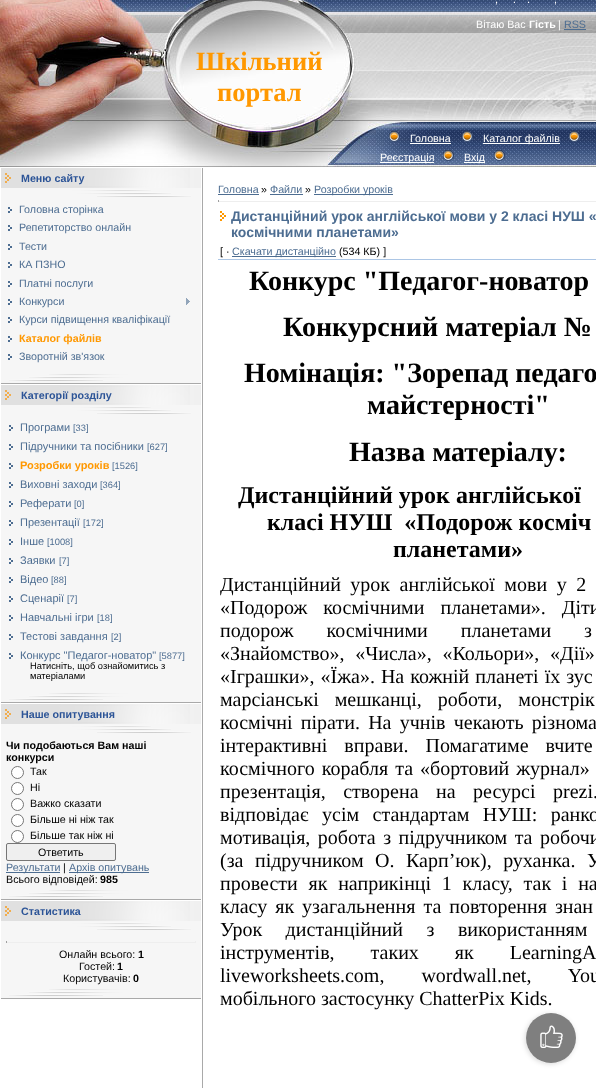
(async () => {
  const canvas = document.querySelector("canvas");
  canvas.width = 596;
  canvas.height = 1088;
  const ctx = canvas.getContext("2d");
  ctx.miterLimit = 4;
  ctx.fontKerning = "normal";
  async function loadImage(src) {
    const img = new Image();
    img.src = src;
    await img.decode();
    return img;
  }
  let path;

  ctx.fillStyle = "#ffffff";
  ctx.fillRect(0, 0, 596, 1088);
  ctx.drawImage(await loadImage("img/1.png"), 0, 0, 360, 167);
  ctx.drawImage(await loadImage("img/2.png"), 360, 0, 236, 167);
  ctx.fillStyle = "#4d6d91";
  ctx.fillRect(564, 29, 22, 1);
  ctx.drawImage(await loadImage("img/3.png"), 389, 131, 11, 11);
  ctx.fillStyle = "#ffffff";
  ctx.fillRect(410, 143, 41, 1);
  ctx.drawImage(await loadImage("img/4.png"), 462, 131, 11, 11);
  ctx.fillRect(483, 143, 77, 1);
  ctx.drawImage(await loadImage("img/5.png"), 569, 131, 11, 11);
  ctx.fillRect(380, 162, 54, 1);
  ctx.drawImage(await loadImage("img/6.png"), 443, 150, 11, 11);
  ctx.fillRect(464, 162, 21, 1);
  ctx.drawImage(await loadImage("img/7.png"), 494, 150, 11, 11);
  ctx.drawImage(await loadImage("img/8.png"), 1, 168, 200, 20);
  ctx.drawImage(await loadImage("img/9.png"), 1, 188, 200, 10);
  ctx.fillStyle = "#f6f6f6";
  ctx.fillRect(1, 198, 200, 176);
  ctx.drawImage(await loadImage("img/10.png"), 8, 207, 4, 6);
  ctx.drawImage(await loadImage("img/10.png"), 8, 225, 4, 6);
  ctx.drawImage(await loadImage("img/10.png"), 8, 244, 4, 6);
  ctx.drawImage(await loadImage("img/10.png"), 8, 262, 4, 6);
  ctx.drawImage(await loadImage("img/10.png"), 8, 281, 4, 6);
  ctx.drawImage(await loadImage("img/10.png"), 8, 299, 4, 6);
  ctx.drawImage(await loadImage("img/11.png"), 186, 298, 4, 7);
  ctx.drawImage(await loadImage("img/10.png"), 8, 317, 4, 6);
  ctx.drawImage(await loadImage("img/10.png"), 8, 336, 4, 6);
  ctx.drawImage(await loadImage("img/10.png"), 8, 354, 4, 6);
  ctx.drawImage(await loadImage("img/12.png"), 1, 374, 200, 10);
  ctx.drawImage(await loadImage("img/8.png"), 1, 385, 200, 20);
  ctx.drawImage(await loadImage("img/9.png"), 1, 405, 200, 10);
  ctx.fillRect(1, 415, 200, 278);
  ctx.drawImage(await loadImage("img/10.png"), 9, 425, 4, 6);
  ctx.drawImage(await loadImage("img/10.png"), 9, 444, 4, 6);
  ctx.drawImage(await loadImage("img/10.png"), 9, 463, 4, 6);
  ctx.drawImage(await loadImage("img/10.png"), 9, 482, 4, 6);
  ctx.drawImage(await loadImage("img/10.png"), 9, 501, 4, 6);
  ctx.drawImage(await loadImage("img/10.png"), 9, 520, 4, 6);
  ctx.drawImage(await loadImage("img/10.png"), 9, 539, 4, 6);
  ctx.drawImage(await loadImage("img/10.png"), 9, 558, 4, 6);
  ctx.drawImage(await loadImage("img/10.png"), 9, 577, 4, 6);
  ctx.drawImage(await loadImage("img/10.png"), 9, 596, 4, 6);
  ctx.drawImage(await loadImage("img/10.png"), 9, 615, 4, 6);
  ctx.drawImage(await loadImage("img/10.png"), 9, 634, 4, 6);
  ctx.drawImage(await loadImage("img/10.png"), 9, 653, 4, 6);
  ctx.drawImage(await loadImage("img/12.png"), 1, 693, 200, 10);
  ctx.drawImage(await loadImage("img/8.png"), 1, 704, 200, 20);
  ctx.drawImage(await loadImage("img/9.png"), 1, 724, 200, 10);
  ctx.fillRect(1, 734, 200, 156);
  ctx.fillStyle = "#ffffff";
  ctx.beginPath();
  ctx.arc(17.5, 772.5, 6, 0, Math.PI * 2);
  ctx.fill();
  ctx.strokeStyle = "#767676";
  ctx.stroke();
  ctx.beginPath();
  ctx.arc(17.5, 788.5, 6, 0, Math.PI * 2);
  ctx.fill();
  ctx.stroke();
  ctx.beginPath();
  ctx.arc(17.5, 804.5, 6, 0, Math.PI * 2);
  ctx.fill();
  ctx.stroke();
  ctx.beginPath();
  ctx.arc(17.5, 820.5, 6, 0, Math.PI * 2);
  ctx.fill();
  ctx.stroke();
  ctx.beginPath();
  ctx.arc(17.5, 836.5, 6, 0, Math.PI * 2);
  ctx.fill();
  ctx.stroke();
  ctx.fillStyle = "#efefef";
  ctx.beginPath();
  ctx.roundRect(6.5, 843.5, 109, 17, 1.5);
  ctx.fill();
  ctx.stroke();
  ctx.fillStyle = "#4d6d91";
  ctx.fillRect(6, 872, 54, 1);
  ctx.fillRect(69, 872, 80, 1);
  ctx.drawImage(await loadImage("img/12.png"), 1, 890, 200, 10);
  ctx.drawImage(await loadImage("img/8.png"), 1, 901, 200, 20);
  ctx.drawImage(await loadImage("img/9.png"), 1, 921, 200, 10);
  for (const [x, y, w, h, color] of [
    [1, 931, 200, 58, "#f6f6f6"],
    [195, 941, 1, 2, "#eeeeee"],
    [6, 942, 190, 1, "#eeeeee"],
    [6, 941, 1, 2, "#9f9f9f"],
  ]) {
    ctx.fillStyle = color;
    ctx.fillRect(x, y, w, h);
  }
  ctx.drawImage(await loadImage("img/12.png"), 1, 989, 200, 10);
  for (const [x, y, w, h, color] of [
    [202, 168, 1, 920, "#a9a9a9"],
    [218, 194, 41, 1, "#4d6d91"],
    [270, 194, 33, 1, "#4d6d91"],
    [314, 194, 79, 1, "#4d6d91"],
    [218, 201, 378, 1, "#eeeeee"],
    [218, 200, 1, 2, "#9f9f9f"],
  ]) {
    ctx.fillStyle = color;
    ctx.fillRect(x, y, w, h);
  }
  ctx.drawImage(await loadImage("img/13.png"), 220, 211, 6, 10);
  ctx.fillStyle = "#4d6d91";
  ctx.fillRect(232, 256, 104, 1);
  ctx.fillStyle = "#acc6e5";
  ctx.fillRect(218, 259, 378, 1);
  ctx.save();
  path = new Path2D("M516 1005H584V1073H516ZM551 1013C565 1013 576 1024 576 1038C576 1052 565 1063 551 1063C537 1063 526 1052 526 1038C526 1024 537 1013 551 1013Z");
  ctx.clip(path, "evenodd");
  ctx.fillStyle = "rgba(0, 0, 0, 0.15)";
  ctx.filter = "blur(2.5px)";
  ctx.beginPath();
  ctx.roundRect(525, 1014, 50, 50, 25);
  ctx.fill();
  ctx.filter = "none";
  ctx.restore();
  ctx.fillStyle = "rgba(0, 0, 0, 0.5)";
  ctx.beginPath();
  ctx.arc(551, 1038, 25, 0, Math.PI * 2);
  ctx.fill();
  ctx.drawImage(await loadImage("img/14.png"), 540, 1025, 23, 23);
  ctx.font = "bold 26.5px Liberation Serif";
  ctx.fillStyle = "#ff9800";
  ctx.fillText("Шкільний", 196, 70);
  ctx.fillText("портал", 217, 101);
  ctx.font = "10.7px Liberation Sans";
  ctx.fillStyle = "#ffffff";
  for (const [text, x, y] of [
    [",", 495, 3],
    [".", 513, 3],
    [".", 527, 3],
    [",", 554, 3],
    ["Вітаю Вас", 476, 28],
  ]) {
    ctx.fillText(text, x, y);
  }
  ctx.font = "bold 10.7px Liberation Sans";
  ctx.fillText("Гість", 529, 28);
  ctx.font = "10.7px Liberation Sans";
  ctx.fillText("|", 558, 28);
  ctx.fillStyle = "#4d6d91";
  ctx.fillText("RSS", 564, 28);
  ctx.fillStyle = "#ffffff";
  for (const [text, x, y] of [
    ["Головна", 410, 142],
    ["Каталог файлів", 483, 142],
    ["Реєстрація", 380, 161],
    ["Вхід", 464, 161],
  ]) {
    ctx.fillText(text, x, y);
  }
  ctx.font = "bold 10.7px Liberation Sans";
  ctx.fillStyle = "#2c5497";
  ctx.fillText("Меню сайту", 21, 182);
  ctx.font = "10.7px Liberation Sans";
  ctx.fillStyle = "#4d6d91";
  for (const [text, x, y] of [
    ["Головна сторінка", 19, 213],
    ["Репетиторство онлайн", 19, 231],
    ["Тести", 19, 250],
    ["КА ПЗНО", 19, 268],
    ["Платні послуги", 19, 287],
    ["Конкурси", 19, 305],
    ["Курси підвищення кваліфікації", 19, 323],
  ]) {
    ctx.fillText(text, x, y);
  }
  ctx.font = "bold 10.7px Liberation Sans";
  ctx.fillStyle = "#ff9800";
  ctx.fillText("Каталог файлів", 19, 342);
  ctx.font = "10.7px Liberation Sans";
  ctx.fillStyle = "#4d6d91";
  ctx.fillText("Зворотній зв'язок", 19, 360);
  ctx.font = "bold 10.7px Liberation Sans";
  ctx.fillStyle = "#2c5497";
  ctx.fillText("Категорії розділу", 21, 399);
  ctx.font = "11px Liberation Sans";
  ctx.fillStyle = "#4d6d91";
  ctx.fillText("Програми", 20, 431);
  ctx.font = "9.3px Liberation Sans";
  ctx.fillText("[33]", 73, 431);
  ctx.font = "11px Liberation Sans";
  ctx.fillText("Підручники та посібники", 20, 450);
  ctx.font = "9.3px Liberation Sans";
  ctx.fillText("[627]", 147, 450);
  ctx.font = "bold 11px Liberation Sans";
  ctx.fillStyle = "#ff9800";
  ctx.fillText("Розробки уроків", 20, 469);
  ctx.font = "9.3px Liberation Sans";
  ctx.fillStyle = "#4d6d91";
  ctx.fillText("[1526]", 112, 469);
  ctx.font = "11px Liberation Sans";
  ctx.fillText("Виховні заходи", 20, 488);
  ctx.font = "9.3px Liberation Sans";
  ctx.fillText("[364]", 100, 488);
  ctx.font = "11px Liberation Sans";
  ctx.fillText("Реферати", 20, 507);
  ctx.font = "9.3px Liberation Sans";
  ctx.fillText("[0]", 74, 507);
  ctx.font = "11px Liberation Sans";
  ctx.fillText("Презентації", 20, 526);
  ctx.font = "9.3px Liberation Sans";
  ctx.fillText("[172]", 83, 526);
  ctx.font = "11px Liberation Sans";
  ctx.fillText("Інше", 20, 545);
  ctx.font = "9.3px Liberation Sans";
  ctx.fillText("[1008]", 47, 545);
  ctx.font = "11px Liberation Sans";
  ctx.fillText("Заявки", 20, 564);
  ctx.font = "9.3px Liberation Sans";
  ctx.fillText("[7]", 59, 564);
  ctx.font = "11px Liberation Sans";
  ctx.fillText("Відео", 20, 583);
  ctx.font = "9.3px Liberation Sans";
  ctx.fillText("[88]", 51, 583);
  ctx.font = "11px Liberation Sans";
  ctx.fillText("Сценарії", 20, 602);
  ctx.font = "9.3px Liberation Sans";
  ctx.fillText("[7]", 67, 602);
  ctx.font = "11px Liberation Sans";
  ctx.fillText("Навчальні ігри", 20, 621);
  ctx.font = "9.3px Liberation Sans";
  ctx.fillText("[18]", 97, 621);
  ctx.font = "11px Liberation Sans";
  ctx.fillText("Тестові завдання", 20, 640);
  ctx.font = "9.3px Liberation Sans";
  ctx.fillText("[2]", 111, 640);
  ctx.font = "11px Liberation Sans";
  ctx.fillText("Конкурс \"Педагог-новатор\"", 20, 659);
  ctx.font = "9.3px Liberation Sans";
  ctx.fillText("[5877]", 159, 659);
  ctx.fillStyle = "#000000";
  ctx.fillText("Натисніть, щоб ознайомитись з", 30, 669);
  ctx.fillText("матеріалами", 30, 679);
  ctx.font = "bold 10.7px Liberation Sans";
  ctx.fillStyle = "#2c5497";
  ctx.fillText("Наше опитування", 21, 718);
  ctx.fillStyle = "#000000";
  ctx.fillText("Чи подобаються Вам наші", 6, 749);
  ctx.fillText("конкурси", 6, 761);
  ctx.font = "10.7px Liberation Sans";
  for (const [text, x, y] of [
    ["Так", 30, 775],
    ["Ні", 30, 791],
    ["Важко сказати", 30, 807],
    ["Більше ні ніж так", 30, 823],
    ["Більше так ніж ні", 30, 839],
    ["Ответить", 38, 856],
  ]) {
    ctx.fillText(text, x, y);
  }
  ctx.fillStyle = "#4d6d91";
  ctx.fillText("Результати", 6, 871);
  ctx.fillStyle = "#000000";
  ctx.fillText("|", 63, 871);
  ctx.fillStyle = "#4d6d91";
  ctx.fillText("Архів опитувань", 69, 871);
  ctx.fillStyle = "#000000";
  ctx.fillText("Всього відповідей:", 6, 883);
  ctx.font = "bold 10.7px Liberation Sans";
  ctx.fillText("985", 100, 883);
  ctx.fillStyle = "#2c5497";
  ctx.fillText("Статистика", 21, 915);
  ctx.font = "10.7px Liberation Sans";
  ctx.fillStyle = "#000000";
  ctx.fillText("Онлайн всього:", 59, 958);
  ctx.font = "bold 10.7px Liberation Sans";
  ctx.fillText("1", 138, 958);
  ctx.font = "10.7px Liberation Sans";
  ctx.fillText("Гостей:", 79, 970);
  ctx.font = "bold 10.7px Liberation Sans";
  ctx.fillText("1", 117, 970);
  ctx.font = "10.7px Liberation Sans";
  ctx.fillText("Користувачів:", 63, 982);
  ctx.font = "bold 10.7px Liberation Sans";
  ctx.fillText("0", 133, 982);
  ctx.font = "10.7px Liberation Sans";
  ctx.fillStyle = "#4d6d91";
  ctx.fillText("Головна", 218, 193);
  ctx.fillStyle = "#000000";
  ctx.fillText("»", 261, 193);
  ctx.fillStyle = "#4d6d91";
  ctx.fillText("Файли", 270, 193);
  ctx.fillStyle = "#000000";
  ctx.fillText("»", 305, 193);
  ctx.fillStyle = "#4d6d91";
  ctx.fillText("Розробки уроків", 314, 193);
  ctx.font = "bold 14px Liberation Sans";
  ctx.fillText("Дистанційний урок англійської мови у 2 класі НУШ «", 231, 221);
  ctx.fillText("космічними планетами»", 231, 237);
  ctx.font = "10.7px Liberation Sans";
  ctx.fillStyle = "#000000";
  ctx.fillText("[ ·", 220, 255);
  ctx.fillStyle = "#4d6d91";
  ctx.fillText("Скачати дистанційно", 232, 255);
  ctx.fillStyle = "#000000";
  ctx.fillText("(534 КБ) ]", 339, 255);
  ctx.font = "bold 28px Liberation Serif";
  for (const [text, x, y] of [
    ["Конкурс \"Педагог-новатор", 249, 290],
    ["Конкурсний матеріал №", 283, 336],
    ["Номінація: \"Зорепад педаго", 244, 382],
    ["майстерності\"", 367, 414],
    ["Назва матеріалу:", 349, 461],
  ]) {
    ctx.fillText(text, x, y);
  }
  ctx.font = "bold 24px Liberation Serif";
  for (const [text, x, y] of [
    ["Дистанційний урок англійської", 238, 503],
    ["класі НУШ  «Подорож косміч", 267, 530],
    ["планетами»", 393, 557],
  ]) {
    ctx.fillText(text, x, y);
  }
  ctx.wordSpacing = "4.5px";
  ctx.font = "20px Liberation Serif";
  ctx.fillText("Дистанційний урок англійської мови у 2", 220, 591);
  ctx.wordSpacing = "11px";
  ctx.fillText("«Подорож космічними планетами». Діти", 220, 614);
  ctx.wordSpacing = "28px";
  ctx.fillText("подорож космічними планетами з", 220, 637);
  ctx.wordSpacing = "5.75px";
  ctx.fillText("«Знайомство», «Числа», «Кольори», «Дії»", 220, 660);
  ctx.wordSpacing = "1px";
  ctx.fillText("«Іграшки», «Їжа». На кожній планеті їх зус", 220, 683);
  ctx.wordSpacing = "11px";
  ctx.fillText("марсіанські мешканці, роботи, монстрік", 220, 706);
  ctx.wordSpacing = "3.25px";
  ctx.fillText("космічні пірати. На учнів чекають різнома", 220, 729);
  ctx.wordSpacing = "12px";
  ctx.fillText("інтерактивні вправи. Помагатиме вчите", 220, 752);
  ctx.wordSpacing = "2px";
  ctx.fillText("космічного корабля та «бортовий журнал»", 220, 775);
  ctx.wordSpacing = "12.5px";
  ctx.fillText("презентація, створена на ресурсі prezi.", 220, 798);
  ctx.wordSpacing = "8.5px";
  ctx.fillText("відповідає усім стандартам НУШ: ранко", 220, 821);
  ctx.wordSpacing = "2.5px";
  ctx.fillText("мотивація, робота з підручником та робочи", 220, 844);
  ctx.wordSpacing = "6.5px";
  ctx.fillText("(за підручником О. Карп’юк), руханка. У", 220, 867);
  ctx.wordSpacing = "5.75px";
  ctx.fillText("провести як наприкінці 1 класу, так і на", 220, 890);
  ctx.wordSpacing = "3px";
  ctx.fillText("класу як узагальнення та повторення знан", 220, 913);
  ctx.wordSpacing = "18.5px";
  ctx.fillText("Урок дистанційний з використанням", 220, 936);
  ctx.wordSpacing = "31px";
  ctx.fillText("інструментів, таких як LearningA", 220, 959);
  ctx.wordSpacing = "32px";
  ctx.fillText("liveworksheets.com, wordwall.net, You", 220, 982);
  ctx.wordSpacing = "0px";
  ctx.fillText("мобільного застосунку ChatterPix Kids.", 220, 1005);
})();
